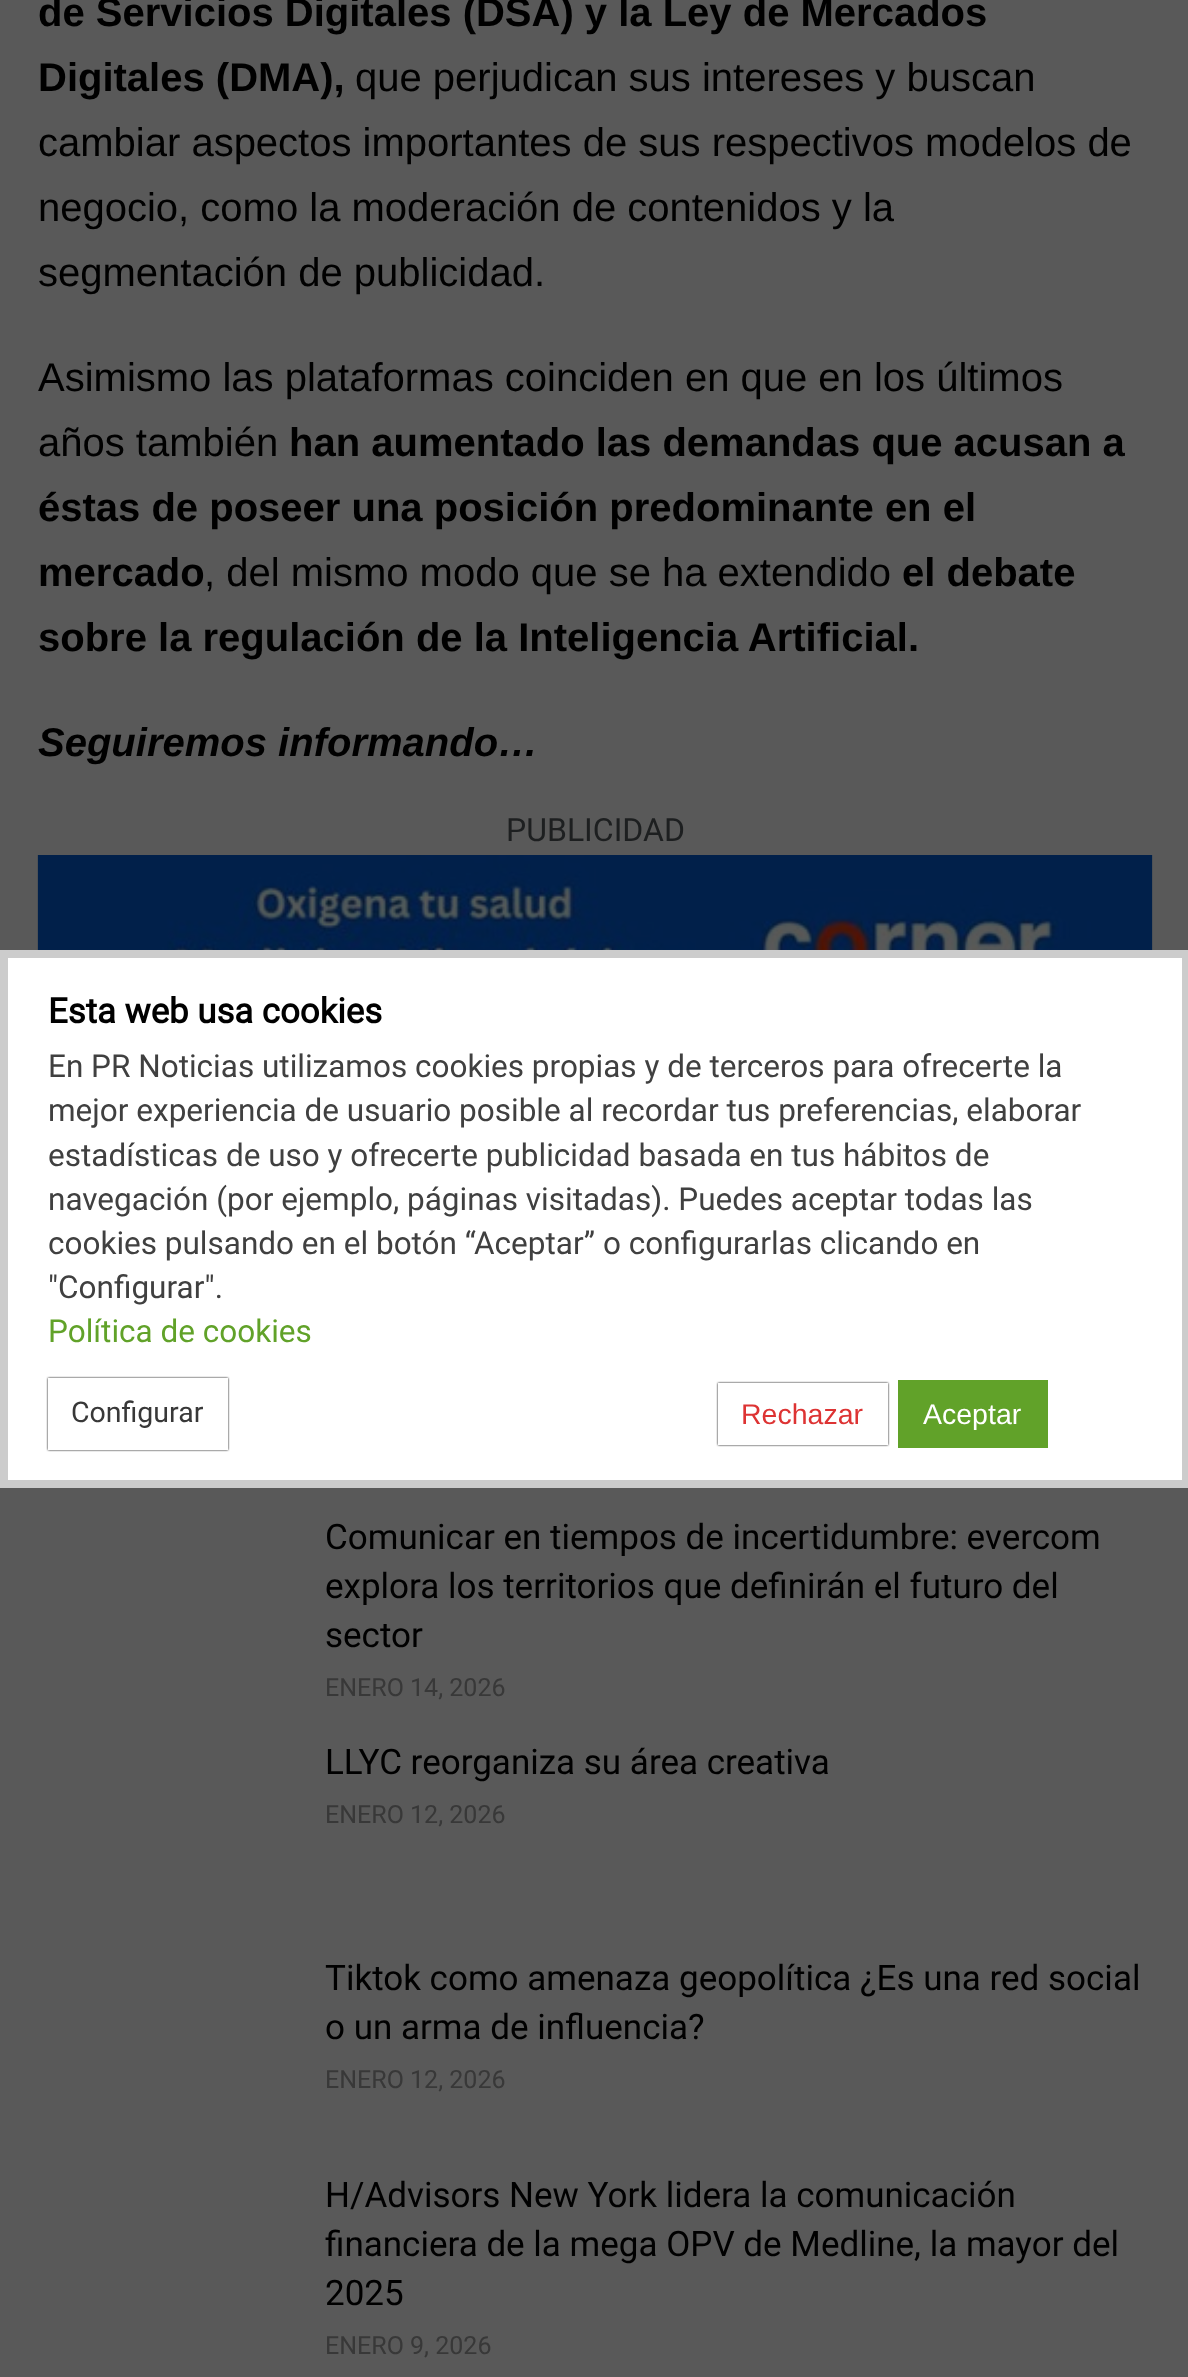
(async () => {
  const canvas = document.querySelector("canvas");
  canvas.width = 1188;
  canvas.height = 2377;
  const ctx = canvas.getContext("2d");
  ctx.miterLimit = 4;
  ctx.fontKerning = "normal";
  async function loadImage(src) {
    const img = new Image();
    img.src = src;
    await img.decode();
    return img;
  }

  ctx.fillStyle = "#595959";
  ctx.fillRect(0, 0, 1188, 2377);
  ctx.drawImage(await loadImage("img/1.png"), 37, 855, 1116, 95);
  ctx.fillStyle = "#ffffff";
  ctx.beginPath();
  ctx.rect(4, 954, 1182, 530);
  ctx.fill();
  ctx.strokeStyle = "#cccccc";
  ctx.lineWidth = 8;
  ctx.stroke();
  ctx.fillStyle = "#000000";
  ctx.filter = "blur(1px)";
  ctx.beginPath();
  ctx.rect(48, 1378, 180, 72);
  ctx.fill();
  ctx.filter = "none";
  ctx.fillStyle = "#ffffff";
  ctx.fillRect(48, 1378, 180, 72);
  ctx.fillStyle = "#000000";
  ctx.filter = "blur(1px)";
  ctx.beginPath();
  ctx.rect(718, 1383, 170, 62);
  ctx.fill();
  ctx.filter = "none";
  ctx.fillStyle = "#ffffff";
  ctx.fillRect(718, 1383, 170, 62);
  ctx.strokeStyle = "#61a229";
  ctx.lineWidth = 3;
  ctx.strokeRect(899.5, 1381.5, 147, 65);
  ctx.fillStyle = "#61a229";
  ctx.fillRect(901, 1383, 144, 62);
  ctx.font = "bold 40px Liberation Sans";
  ctx.fillStyle = "#000000";
  ctx.fillText("de Servicios Digitales (DSA) y la Ley de Mercados", 38, 26);
  ctx.fillText("Digitales (DMA),", 38, 91);
  ctx.font = "40px Liberation Sans";
  for (const [text, x, y] of [
    ["que perjudican sus intereses y buscan", 355, 91],
    ["cambiar aspectos importantes de sus respectivos modelos de", 38, 156],
    ["negocio, como la moderación de contenidos y la", 38, 221],
    ["segmentación de publicidad.", 38, 286],
    ["Asimismo las plataformas coinciden en que en los últimos", 38, 391],
    ["años también", 38, 456],
  ]) {
    ctx.fillText(text, x, y);
  }
  ctx.font = "bold 40px Liberation Sans";
  for (const [text, x, y] of [
    ["han aumentado las demandas que acusan a", 289, 456],
    ["éstas de poseer una posición predominante en el", 38, 521],
    ["mercado", 38, 586],
  ]) {
    ctx.fillText(text, x, y);
  }
  ctx.font = "40px Liberation Sans";
  ctx.fillText(", del mismo modo que se ha extendido", 204, 586);
  ctx.font = "bold 40px Liberation Sans";
  ctx.fillText("el debate", 902, 586);
  ctx.fillText("sobre la regulación de la Inteligencia Artificial.", 38, 651);
  ctx.font = "italic bold 40px Liberation Sans";
  ctx.fillText("Seguiremos informando…", 38, 756);
  ctx.font = "32px Roboto";
  ctx.fillStyle = "#1d1f20";
  ctx.fillText("PUBLICIDAD", 506, 841);
  ctx.font = "35px Roboto";
  ctx.fillStyle = "#000000";
  for (const [text, x, y] of [
    ["Comunicar en tiempos de incertidumbre: evercom", 325, 1549],
    ["explora los territorios que definirán el futuro del", 325, 1598],
    ["sector", 325, 1647],
  ]) {
    ctx.fillText(text, x, y);
  }
  ctx.font = "25px Roboto";
  ctx.fillStyle = "#383838";
  ctx.fillText("ENERO 14, 2026", 325, 1696);
  ctx.font = "35px Roboto";
  ctx.fillStyle = "#000000";
  ctx.fillText("LLYC reorganiza su área creativa", 325, 1774);
  ctx.font = "25px Roboto";
  ctx.fillStyle = "#383838";
  ctx.fillText("ENERO 12, 2026", 325, 1823);
  ctx.font = "35px Roboto";
  ctx.fillStyle = "#000000";
  ctx.fillText("Tiktok como amenaza geopolítica ¿Es una red social", 325, 1990);
  ctx.fillText("o un arma de influencia?", 325, 2039);
  ctx.font = "25px Roboto";
  ctx.fillStyle = "#383838";
  ctx.fillText("ENERO 12, 2026", 325, 2088);
  ctx.font = "35px Roboto";
  ctx.fillStyle = "#000000";
  for (const [text, x, y] of [
    ["H/Advisors New York lidera la comunicación", 325, 2207],
    ["financiera de la mega OPV de Medline, la mayor del", 325, 2256],
    ["2025", 325, 2305],
  ]) {
    ctx.fillText(text, x, y);
  }
  ctx.font = "25px Roboto";
  ctx.fillStyle = "#383838";
  ctx.fillText("ENERO 9, 2026", 325, 2354);
  ctx.font = "bold 34.75px Roboto";
  ctx.fillStyle = "#000000";
  ctx.fillText("Esta web usa cookies", 48, 1023);
  ctx.font = "31.5px Roboto";
  ctx.fillStyle = "#404040";
  for (const [text, x, y] of [
    ["En PR Noticias utilizamos cookies propias y de terceros para ofrecerte la", 48, 1077],
    ["mejor experiencia de usuario posible al recordar tus preferencias, elaborar", 48, 1121],
    ["estadísticas de uso y ofrecerte publicidad basada en tus hábitos de", 48, 1166],
    ["navegación (por ejemplo, páginas visitadas). Puedes aceptar todas las", 48, 1210],
    ["cookies pulsando en el botón “Aceptar” o configurarlas clicando en", 48, 1254],
    ["\"Configurar\".", 48, 1298],
  ]) {
    ctx.fillText(text, x, y);
  }
  ctx.fillStyle = "#61a229";
  ctx.fillText("Política de cookies", 48, 1342);
  ctx.font = "28.5px Roboto";
  ctx.fillStyle = "#383838";
  ctx.fillText("Configurar", 71, 1422);
  ctx.font = "28.5px Liberation Sans";
  ctx.fillStyle = "#dd3333";
  ctx.fillText("Rechazar", 741, 1424);
  ctx.fillStyle = "#ffffff";
  ctx.fillText("Aceptar", 923, 1424);
})();
